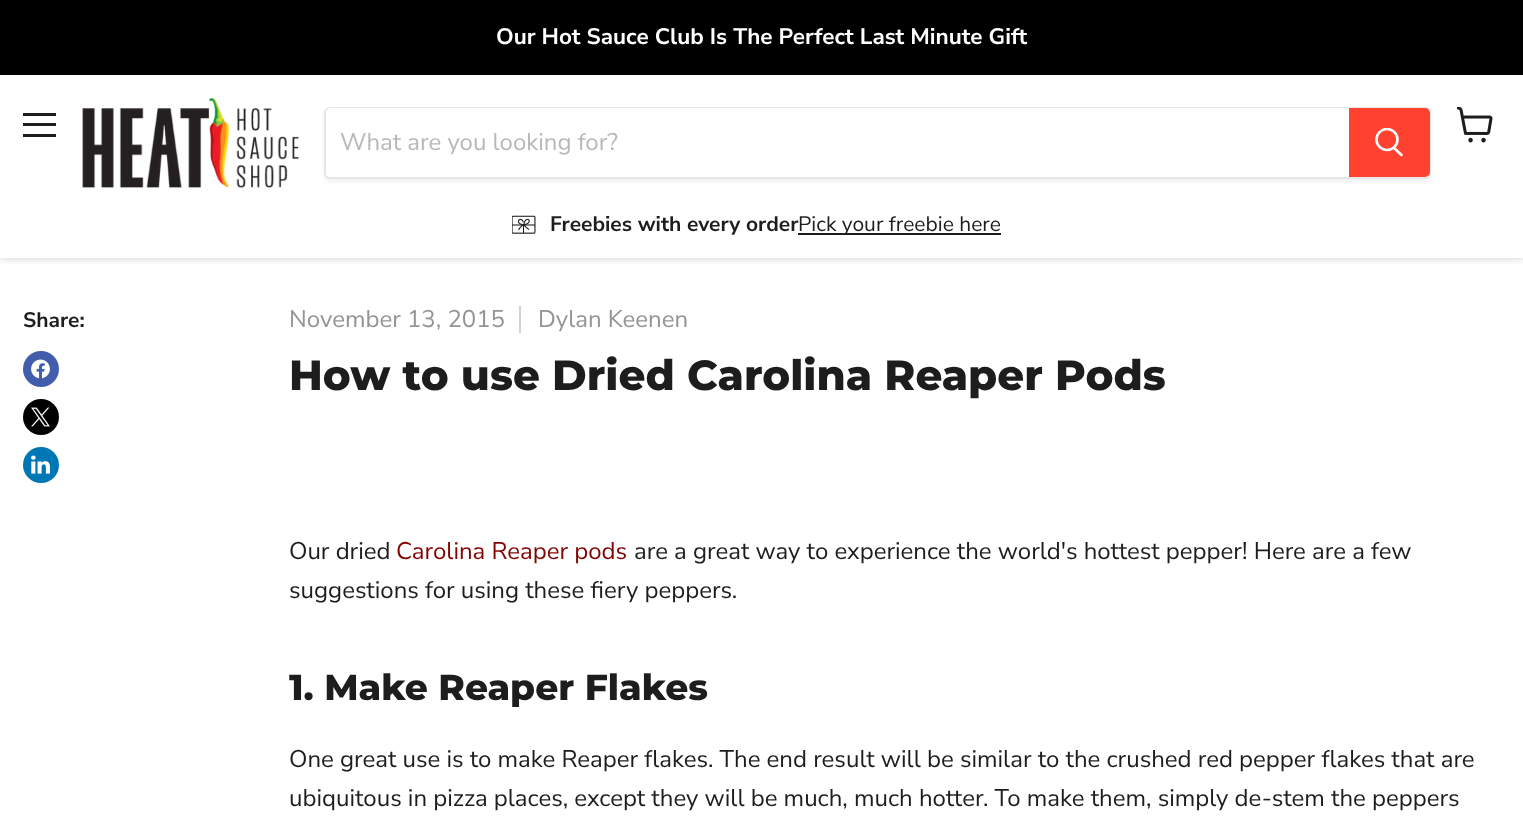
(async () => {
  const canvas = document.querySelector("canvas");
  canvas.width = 1523;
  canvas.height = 822;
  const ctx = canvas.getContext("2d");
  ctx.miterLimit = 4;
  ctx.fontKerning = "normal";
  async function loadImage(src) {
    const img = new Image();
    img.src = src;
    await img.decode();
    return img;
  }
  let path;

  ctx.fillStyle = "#ffffff";
  ctx.fillRect(0, 0, 1523, 822);
  ctx.save();
  ctx.beginPath();
  ctx.rect(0, 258, 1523, 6);
  ctx.clip();
  ctx.fillStyle = "rgba(128, 128, 128, 0.25)";
  ctx.filter = "blur(3px)";
  ctx.beginPath();
  ctx.rect(0, 77, 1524, 183);
  ctx.fill();
  ctx.filter = "none";
  ctx.restore();
  for (const [x, y, w, h, color] of [
    [0, 0, 1523, 75, "#000000"],
    [23, 113, 33, 3, "#1d1d1d"],
    [23, 123, 33, 3, "#1d1d1d"],
    [23, 134, 33, 3, "#1d1d1d"],
  ]) {
    ctx.fillStyle = color;
    ctx.fillRect(x, y, w, h);
  }
  ctx.drawImage(await loadImage("img/1.png"), 1457, 107, 36, 36);
  ctx.drawImage(await loadImage("img/2.png"), 82, 97, 217, 91);
  ctx.save();
  path = new Path2D("M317 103H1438V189H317ZM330 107H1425C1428.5 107 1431 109.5 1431 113V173C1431 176.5 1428.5 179 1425 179H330C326.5 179 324 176.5 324 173V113C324 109.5 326.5 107 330 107Z");
  ctx.clip(path, "evenodd");
  ctx.fillStyle = "rgba(128, 128, 128, 0.11)";
  ctx.filter = "blur(2px)";
  ctx.beginPath();
  ctx.roundRect(324, 110, 1107, 72, 6);
  ctx.fill();
  ctx.filter = "none";
  ctx.restore();
  ctx.beginPath();
  ctx.roundRect(325, 108, 1105, 70, 5);
  ctx.strokeStyle = "rgba(128, 128, 128, 0.2)";
  ctx.lineWidth = 2;
  ctx.stroke();
  ctx.fillStyle = "#ffffff";
  ctx.beginPath();
  ctx.roundRect(326, 108, 1023, 69, [5, 0, 0, 5]);
  ctx.fill();
  ctx.fillStyle = "#ff4230";
  ctx.beginPath();
  ctx.roundRect(1350, 109, 79, 67, [0, 4, 4, 0]);
  ctx.fill();
  ctx.strokeStyle = "#ff4230";
  ctx.stroke();
  path = new Path2D("M1401.5 155L1394 148");
  ctx.strokeStyle = "#ffffff";
  ctx.lineWidth = 2.6;
  ctx.lineCap = "round";
  ctx.stroke(path);
  ctx.save();
  ctx.beginPath();
  ctx.rect(1374, 128, 30, 31);
  ctx.clip();
  ctx.beginPath();
  ctx.arc(1387, 139.5, 10.5, 0, Math.PI * 2);
  ctx.stroke();
  ctx.restore();
  ctx.drawImage(await loadImage("img/3.png"), 512, 215, 24, 19);
  ctx.fillStyle = "#1d1d1d";
  ctx.fillRect(798, 233, 203, 2);
  ctx.fillStyle = "#425dab";
  ctx.beginPath();
  ctx.arc(41, 369, 18, 0, Math.PI * 2);
  ctx.fill();
  ctx.drawImage(await loadImage("img/4.png"), 31, 359, 19, 20);
  ctx.fillStyle = "#000000";
  ctx.beginPath();
  ctx.arc(41, 417, 18, 0, Math.PI * 2);
  ctx.fill();
  ctx.drawImage(await loadImage("img/5.png"), 31, 407, 19, 20);
  ctx.fillStyle = "#0077b5";
  ctx.beginPath();
  ctx.arc(41, 465, 18, 0, Math.PI * 2);
  ctx.fill();
  ctx.drawImage(await loadImage("img/6.png"), 31, 455, 19, 19);
  ctx.fillStyle = "#d3d3d3";
  ctx.fillRect(519, 306, 2, 27);
  ctx.font = "bold 22.5px Nunito Sans";
  ctx.fillStyle = "#ffffff";
  ctx.fillText("Our Hot Sauce Club Is The Perfect Last Minute Gift", 496, 44);
  ctx.font = "24px Nunito Sans";
  ctx.fillStyle = "#b8b8b8";
  ctx.fillText("What are you looking for?", 340, 150);
  ctx.font = "bold 21px Nunito Sans";
  ctx.fillStyle = "#1d1d1d";
  ctx.fillText("Freebies with every order", 550, 231);
  ctx.font = "21px Nunito Sans";
  ctx.fillText("Pick your freebie here", 798, 231);
  ctx.font = "bold 21px Nunito Sans";
  ctx.fillText("Share:", 23, 327);
  ctx.font = "24px Nunito Sans";
  ctx.fillStyle = "#949494";
  ctx.fillText("November 13, 2015", 289, 327);
  ctx.fillText("Dylan Keenen", 538, 327);
  ctx.font = "800 42px Montserrat";
  ctx.fillStyle = "#1d1d1d";
  ctx.fillText("How to use Dried Carolina Reaper Pods", 289, 390);
  ctx.font = "24px Nunito Sans";
  ctx.fillText("Our dried", 289, 559);
  ctx.fillStyle = "#820404";
  ctx.fillText("Carolina Reaper pods", 396, 559);
  ctx.fillStyle = "#1d1d1d";
  ctx.fillText("are a great way to experience the world's hottest pepper! Here are a few", 634, 559);
  ctx.fillText("suggestions for using these fiery peppers.", 289, 598);
  ctx.font = "800 36px Montserrat";
  ctx.fillText("1. Make Reaper Flakes", 289, 700);
  ctx.font = "24px Nunito Sans";
  ctx.fillText("One great use is to make Reaper flakes. The end result will be similar to the crushed red pepper flakes that are", 289, 767);
  ctx.fillText("ubiquitous in pizza places, except they will be much, much hotter. To make them, simply de-stem the peppers", 289, 806);
})();
